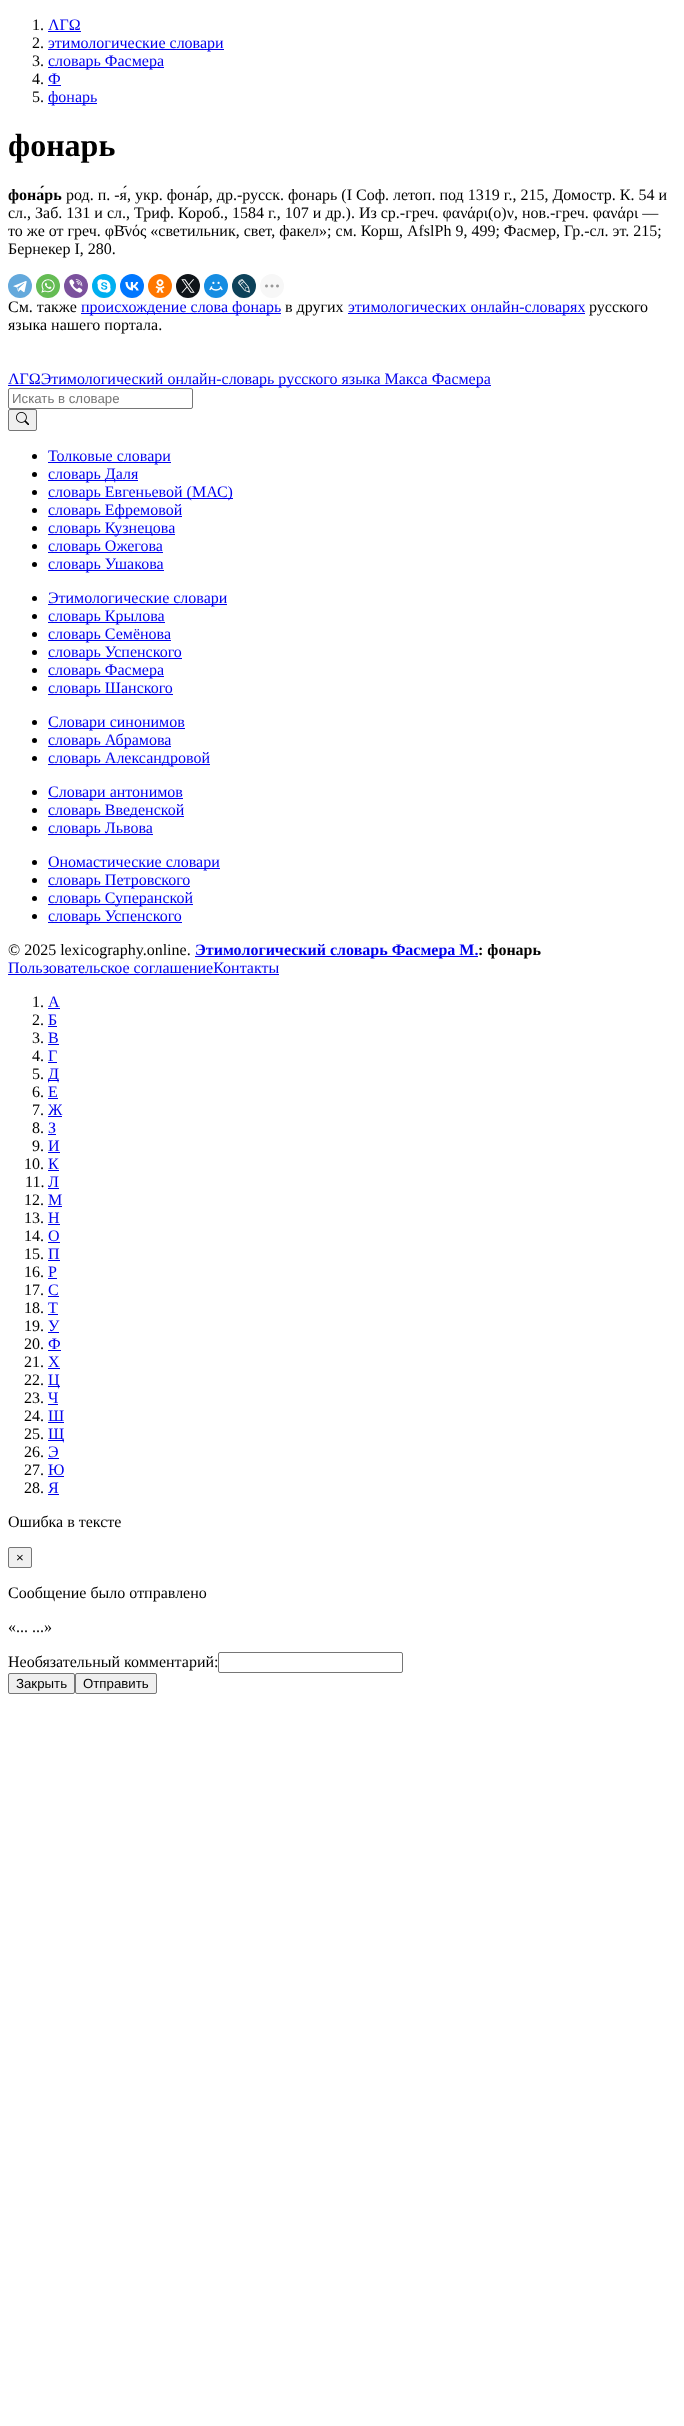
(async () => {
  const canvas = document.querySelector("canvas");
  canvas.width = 684;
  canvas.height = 2426;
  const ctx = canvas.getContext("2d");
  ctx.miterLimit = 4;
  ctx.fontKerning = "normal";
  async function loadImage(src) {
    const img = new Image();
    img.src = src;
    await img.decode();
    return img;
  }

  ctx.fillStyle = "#ffffff";
  ctx.fillRect(0, 0, 684, 2426);
  for (const [x, y, w, h, color] of [
    [48, 31, 33, 1, "#0000ee"],
    [48, 49, 176, 1, "#0000ee"],
    [48, 67, 116, 1, "#0000ee"],
    [48, 85, 13, 1, "#0000ee"],
    [48, 103, 49, 1, "#0000ee"],
  ]) {
    ctx.fillStyle = color;
    ctx.fillRect(x, y, w, h);
  }
  ctx.fillStyle = "#64a9dc";
  ctx.beginPath();
  ctx.arc(20, 286, 12, 0, Math.PI * 2);
  ctx.fill();
  ctx.drawImage(await loadImage("img/1.png"), 13, 281, 14, 12);
  ctx.fillStyle = "#65bc54";
  ctx.beginPath();
  ctx.arc(48, 286, 12, 0, Math.PI * 2);
  ctx.fill();
  ctx.drawImage(await loadImage("img/2.png"), 41, 279, 14, 14);
  ctx.fillStyle = "#7b519d";
  ctx.beginPath();
  ctx.arc(76, 286, 12, 0, Math.PI * 2);
  ctx.fill();
  ctx.drawImage(await loadImage("img/3.png"), 69, 279, 14, 14);
  ctx.fillStyle = "#00aff0";
  ctx.beginPath();
  ctx.arc(104, 286, 12, 0, Math.PI * 2);
  ctx.fill();
  ctx.drawImage(await loadImage("img/4.png"), 97, 279, 14, 14);
  ctx.fillStyle = "#0077ff";
  ctx.beginPath();
  ctx.arc(132, 286, 12, 0, Math.PI * 2);
  ctx.fill();
  ctx.drawImage(await loadImage("img/5.png"), 125, 282, 14, 9);
  ctx.fillStyle = "#ff7700";
  ctx.beginPath();
  ctx.arc(160, 286, 12, 0, Math.PI * 2);
  ctx.fill();
  ctx.drawImage(await loadImage("img/6.png"), 155, 279, 10, 14);
  ctx.fillStyle = "#0f1419";
  ctx.beginPath();
  ctx.arc(188, 286, 12, 0, Math.PI * 2);
  ctx.fill();
  ctx.drawImage(await loadImage("img/7.png"), 181, 279, 14, 14);
  ctx.fillStyle = "#168de2";
  ctx.beginPath();
  ctx.arc(216, 286, 12, 0, Math.PI * 2);
  ctx.fill();
  ctx.drawImage(await loadImage("img/8.png"), 209, 281, 14, 10);
  ctx.fillStyle = "#0d425a";
  ctx.beginPath();
  ctx.arc(244, 286, 12, 0, Math.PI * 2);
  ctx.fill();
  ctx.drawImage(await loadImage("img/9.png"), 238, 279, 12, 14);
  ctx.fillStyle = "#f7f7f7";
  ctx.beginPath();
  ctx.arc(272, 286, 12, 0, Math.PI * 2);
  ctx.fill();
  ctx.drawImage(await loadImage("img/10.png"), 265, 284, 14, 4);
  for (const [x, y, w, h, color] of [
    [81, 313, 200, 1, "#0000ee"],
    [348, 313, 237, 1, "#0000ee"],
    [8, 385, 483, 1, "#0000ee"],
  ]) {
    ctx.fillStyle = color;
    ctx.fillRect(x, y, w, h);
  }
  ctx.beginPath();
  ctx.roundRect(8.5, 388.5, 184, 20, 1.5);
  ctx.strokeStyle = "#767676";
  ctx.stroke();
  ctx.fillStyle = "#efefef";
  ctx.beginPath();
  ctx.roundRect(8.5, 409.5, 28, 21, 1.5);
  ctx.fill();
  ctx.stroke();
  ctx.drawImage(await loadImage("img/11.png"), 16, 412, 13, 13);
  ctx.fillStyle = "#000000";
  ctx.beginPath();
  ctx.arc(34.5, 456.5, 2.5, 0, Math.PI * 2);
  ctx.fill();
  ctx.fillStyle = "#0000ee";
  ctx.fillRect(48, 462, 123, 1);
  ctx.fillStyle = "#000000";
  ctx.beginPath();
  ctx.arc(34.5, 474.5, 2.5, 0, Math.PI * 2);
  ctx.fill();
  ctx.fillStyle = "#0000ee";
  ctx.fillRect(48, 480, 90, 1);
  ctx.fillStyle = "#000000";
  ctx.beginPath();
  ctx.arc(34.5, 492.5, 2.5, 0, Math.PI * 2);
  ctx.fill();
  ctx.fillStyle = "#0000ee";
  ctx.fillRect(48, 498, 185, 1);
  ctx.fillStyle = "#000000";
  ctx.beginPath();
  ctx.arc(34.5, 510.5, 2.5, 0, Math.PI * 2);
  ctx.fill();
  ctx.fillStyle = "#0000ee";
  ctx.fillRect(48, 516, 134, 1);
  ctx.fillStyle = "#000000";
  ctx.beginPath();
  ctx.arc(34.5, 528.5, 2.5, 0, Math.PI * 2);
  ctx.fill();
  ctx.fillStyle = "#0000ee";
  ctx.fillRect(48, 534, 127, 1);
  ctx.fillStyle = "#000000";
  ctx.beginPath();
  ctx.arc(34.5, 546.5, 2.5, 0, Math.PI * 2);
  ctx.fill();
  ctx.fillStyle = "#0000ee";
  ctx.fillRect(48, 552, 115, 1);
  ctx.fillStyle = "#000000";
  ctx.beginPath();
  ctx.arc(34.5, 564.5, 2.5, 0, Math.PI * 2);
  ctx.fill();
  ctx.fillStyle = "#0000ee";
  ctx.fillRect(48, 570, 116, 1);
  ctx.fillStyle = "#000000";
  ctx.beginPath();
  ctx.arc(34.5, 598.5, 2.5, 0, Math.PI * 2);
  ctx.fill();
  ctx.fillStyle = "#0000ee";
  ctx.fillRect(48, 604, 179, 1);
  ctx.fillStyle = "#000000";
  ctx.beginPath();
  ctx.arc(34.5, 616.5, 2.5, 0, Math.PI * 2);
  ctx.fill();
  ctx.fillStyle = "#0000ee";
  ctx.fillRect(48, 622, 117, 1);
  ctx.fillStyle = "#000000";
  ctx.beginPath();
  ctx.arc(34.5, 634.5, 2.5, 0, Math.PI * 2);
  ctx.fill();
  ctx.fillStyle = "#0000ee";
  ctx.fillRect(48, 640, 123, 1);
  ctx.fillStyle = "#000000";
  ctx.beginPath();
  ctx.arc(34.5, 652.5, 2.5, 0, Math.PI * 2);
  ctx.fill();
  ctx.fillStyle = "#0000ee";
  ctx.fillRect(48, 658, 134, 1);
  ctx.fillStyle = "#000000";
  ctx.beginPath();
  ctx.arc(34.5, 670.5, 2.5, 0, Math.PI * 2);
  ctx.fill();
  ctx.fillStyle = "#0000ee";
  ctx.fillRect(48, 676, 116, 1);
  ctx.fillStyle = "#000000";
  ctx.beginPath();
  ctx.arc(34.5, 688.5, 2.5, 0, Math.PI * 2);
  ctx.fill();
  ctx.fillStyle = "#0000ee";
  ctx.fillRect(48, 694, 125, 1);
  ctx.fillStyle = "#000000";
  ctx.beginPath();
  ctx.arc(34.5, 722.5, 2.5, 0, Math.PI * 2);
  ctx.fill();
  ctx.fillStyle = "#0000ee";
  ctx.fillRect(48, 728, 137, 1);
  ctx.fillStyle = "#000000";
  ctx.beginPath();
  ctx.arc(34.5, 740.5, 2.5, 0, Math.PI * 2);
  ctx.fill();
  ctx.fillStyle = "#0000ee";
  ctx.fillRect(48, 746, 123, 1);
  ctx.fillStyle = "#000000";
  ctx.beginPath();
  ctx.arc(34.5, 758.5, 2.5, 0, Math.PI * 2);
  ctx.fill();
  ctx.fillStyle = "#0000ee";
  ctx.fillRect(48, 764, 162, 1);
  ctx.fillStyle = "#000000";
  ctx.beginPath();
  ctx.arc(34.5, 792.5, 2.5, 0, Math.PI * 2);
  ctx.fill();
  ctx.fillStyle = "#0000ee";
  ctx.fillRect(48, 798, 135, 1);
  ctx.fillStyle = "#000000";
  ctx.beginPath();
  ctx.arc(34.5, 810.5, 2.5, 0, Math.PI * 2);
  ctx.fill();
  ctx.fillStyle = "#0000ee";
  ctx.fillRect(48, 816, 136, 1);
  ctx.fillStyle = "#000000";
  ctx.beginPath();
  ctx.arc(34.5, 828.5, 2.5, 0, Math.PI * 2);
  ctx.fill();
  ctx.fillStyle = "#0000ee";
  ctx.fillRect(48, 834, 105, 1);
  ctx.fillStyle = "#000000";
  ctx.beginPath();
  ctx.arc(34.5, 862.5, 2.5, 0, Math.PI * 2);
  ctx.fill();
  ctx.fillStyle = "#0000ee";
  ctx.fillRect(48, 868, 172, 1);
  ctx.fillStyle = "#000000";
  ctx.beginPath();
  ctx.arc(34.5, 880.5, 2.5, 0, Math.PI * 2);
  ctx.fill();
  ctx.fillStyle = "#0000ee";
  ctx.fillRect(48, 886, 142, 1);
  ctx.fillStyle = "#000000";
  ctx.beginPath();
  ctx.arc(34.5, 898.5, 2.5, 0, Math.PI * 2);
  ctx.fill();
  ctx.fillStyle = "#0000ee";
  ctx.fillRect(48, 904, 145, 1);
  ctx.fillStyle = "#000000";
  ctx.beginPath();
  ctx.arc(34.5, 916.5, 2.5, 0, Math.PI * 2);
  ctx.fill();
  for (const [x, y, w, h, color] of [
    [48, 922, 134, 1, "#0000ee"],
    [195, 956, 283, 1, "#0000ee"],
    [8, 974, 271, 1, "#0000ee"],
    [48, 1008, 12, 1, "#0000ee"],
    [48, 1026, 9, 1, "#0000ee"],
    [48, 1044, 11, 1, "#0000ee"],
    [48, 1062, 9, 1, "#0000ee"],
    [48, 1080, 11, 1, "#0000ee"],
    [48, 1098, 10, 1, "#0000ee"],
    [48, 1116, 14, 1, "#0000ee"],
    [48, 1134, 8, 1, "#0000ee"],
    [48, 1152, 12, 1, "#0000ee"],
    [48, 1170, 11, 1, "#0000ee"],
    [48, 1188, 11, 1, "#0000ee"],
    [48, 1206, 14, 1, "#0000ee"],
    [48, 1224, 12, 1, "#0000ee"],
    [48, 1242, 12, 1, "#0000ee"],
    [48, 1260, 12, 1, "#0000ee"],
    [48, 1278, 9, 1, "#0000ee"],
    [48, 1296, 11, 1, "#0000ee"],
    [48, 1314, 10, 1, "#0000ee"],
    [48, 1332, 11, 1, "#0000ee"],
    [48, 1350, 13, 1, "#0000ee"],
    [48, 1368, 12, 1, "#0000ee"],
    [48, 1386, 12, 1, "#0000ee"],
    [48, 1404, 10, 1, "#0000ee"],
    [48, 1422, 16, 1, "#0000ee"],
    [48, 1440, 16, 1, "#0000ee"],
    [48, 1458, 11, 1, "#0000ee"],
    [48, 1476, 16, 1, "#0000ee"],
    [48, 1494, 11, 1, "#0000ee"],
  ]) {
    ctx.fillStyle = color;
    ctx.fillRect(x, y, w, h);
  }
  ctx.fillStyle = "#efefef";
  ctx.beginPath();
  ctx.roundRect(8.5, 1547.5, 23, 20, 1.5);
  ctx.fill();
  ctx.stroke();
  ctx.beginPath();
  ctx.roundRect(218.5, 1652.5, 184, 20, 1.5);
  ctx.stroke();
  ctx.beginPath();
  ctx.roundRect(8.5, 1673.5, 66, 20, 1.5);
  ctx.fill();
  ctx.stroke();
  ctx.beginPath();
  ctx.roundRect(75.5, 1673.5, 81, 20, 1.5);
  ctx.fill();
  ctx.stroke();
  ctx.font = "16px Liberation Serif";
  ctx.fillStyle = "#000000";
  ctx.fillText("1.", 32, 30);
  ctx.fillStyle = "#0000ee";
  ctx.fillText("ΛΓΩ", 48, 30);
  ctx.fillStyle = "#000000";
  ctx.fillText("2.", 32, 48);
  ctx.fillStyle = "#0000ee";
  ctx.fillText("этимологические словари", 48, 48);
  ctx.fillStyle = "#000000";
  ctx.fillText("3.", 32, 66);
  ctx.fillStyle = "#0000ee";
  ctx.fillText("словарь Фасмера", 48, 66);
  ctx.fillStyle = "#000000";
  ctx.fillText("4.", 32, 84);
  ctx.fillStyle = "#0000ee";
  ctx.fillText("Ф", 48, 84);
  ctx.fillStyle = "#000000";
  ctx.fillText("5.", 32, 102);
  ctx.fillStyle = "#0000ee";
  ctx.fillText("фонарь", 48, 102);
  ctx.font = "bold 32px Liberation Serif";
  ctx.fillStyle = "#000000";
  ctx.fillText("фонарь", 8, 156);
  ctx.font = "bold 16px Liberation Serif";
  ctx.fillText("фона́рь", 8, 200);
  ctx.font = "16px Liberation Serif";
  for (const [text, x, y] of [
    ["род. п. -я́, укр. фона́р, др.-русск. фонарь (I Соф. летоп. под 1319 г., 215, Домостр. К. 54 и", 66, 200],
    ["сл., Заб. 131 и сл., Триф. Короб., 1584 г., 107 и др.). Из ср.-греч. φανάρι(ο)ν, нов.-греч. φανάρι —", 8, 218],
    ["то же от греч. φΒ̄νός «светильник, свет, факел»; см. Корш, AfslPh 9, 499; Фасмер, Гр.-сл. эт. 215;", 8, 236],
    ["Бернекер I, 280.", 8, 254],
    ["См. также", 8, 312],
  ]) {
    ctx.fillText(text, x, y);
  }
  ctx.fillStyle = "#0000ee";
  ctx.fillText("происхождение слова фонарь", 81, 312);
  ctx.fillStyle = "#000000";
  ctx.fillText("в других", 285, 312);
  ctx.fillStyle = "#0000ee";
  ctx.fillText("этимологических онлайн-словарях", 348, 312);
  ctx.fillStyle = "#000000";
  ctx.fillText("русского", 589, 312);
  ctx.fillText("языка нашего портала.", 8, 330);
  ctx.fillStyle = "#0000ee";
  ctx.fillText("ΛΓΩЭтимологический онлайн-словарь русского языка Макса Фасмера", 8, 384);
  ctx.font = "13.25px Liberation Sans";
  ctx.fillStyle = "#757575";
  ctx.fillText("Искать в словаре", 12, 403);
  ctx.font = "16px Liberation Serif";
  ctx.fillStyle = "#0000ee";
  for (const [text, x, y] of [
    ["Толковые словари", 48, 461],
    ["словарь Даля", 48, 479],
    ["словарь Евгеньевой (МАС)", 48, 497],
    ["словарь Ефремовой", 48, 515],
    ["словарь Кузнецова", 48, 533],
    ["словарь Ожегова", 48, 551],
    ["словарь Ушакова", 48, 569],
    ["Этимологические словари", 48, 603],
    ["словарь Крылова", 48, 621],
    ["словарь Семёнова", 48, 639],
    ["словарь Успенского", 48, 657],
    ["словарь Фасмера", 48, 675],
    ["словарь Шанского", 48, 693],
    ["Словари синонимов", 48, 727],
    ["словарь Абрамова", 48, 745],
    ["словарь Александровой", 48, 763],
    ["Словари антонимов", 48, 797],
    ["словарь Введенской", 48, 815],
    ["словарь Львова", 48, 833],
    ["Ономастические словари", 48, 867],
    ["словарь Петровского", 48, 885],
    ["словарь Суперанской", 48, 903],
    ["словарь Успенского", 48, 921],
  ]) {
    ctx.fillText(text, x, y);
  }
  ctx.fillStyle = "#000000";
  ctx.fillText("© 2025 lexicography.online.", 8, 955);
  ctx.font = "bold 16px Liberation Serif";
  ctx.fillStyle = "#0000ee";
  ctx.fillText("Этимологический словарь Фасмера М.", 195, 955);
  ctx.fillStyle = "#000000";
  ctx.fillText(": фонарь", 478, 955);
  ctx.font = "16px Liberation Serif";
  ctx.fillStyle = "#0000ee";
  ctx.fillText("Пользовательское соглашениеКонтакты", 8, 973);
  ctx.fillStyle = "#000000";
  ctx.fillText("1.", 32, 1007);
  ctx.fillStyle = "#0000ee";
  ctx.fillText("А", 48, 1007);
  ctx.fillStyle = "#000000";
  ctx.fillText("2.", 32, 1025);
  ctx.fillStyle = "#0000ee";
  ctx.fillText("Б", 48, 1025);
  ctx.fillStyle = "#000000";
  ctx.fillText("3.", 32, 1043);
  ctx.fillStyle = "#0000ee";
  ctx.fillText("В", 48, 1043);
  ctx.fillStyle = "#000000";
  ctx.fillText("4.", 32, 1061);
  ctx.fillStyle = "#0000ee";
  ctx.fillText("Г", 48, 1061);
  ctx.fillStyle = "#000000";
  ctx.fillText("5.", 32, 1079);
  ctx.fillStyle = "#0000ee";
  ctx.fillText("Д", 48, 1079);
  ctx.fillStyle = "#000000";
  ctx.fillText("6.", 32, 1097);
  ctx.fillStyle = "#0000ee";
  ctx.fillText("Е", 48, 1097);
  ctx.fillStyle = "#000000";
  ctx.fillText("7.", 32, 1115);
  ctx.fillStyle = "#0000ee";
  ctx.fillText("Ж", 48, 1115);
  ctx.fillStyle = "#000000";
  ctx.fillText("8.", 32, 1133);
  ctx.fillStyle = "#0000ee";
  ctx.fillText("З", 48, 1133);
  ctx.fillStyle = "#000000";
  ctx.fillText("9.", 32, 1151);
  ctx.fillStyle = "#0000ee";
  ctx.fillText("И", 48, 1151);
  ctx.fillStyle = "#000000";
  ctx.fillText("10.", 24, 1169);
  ctx.fillStyle = "#0000ee";
  ctx.fillText("К", 48, 1169);
  ctx.fillStyle = "#000000";
  ctx.fillText("11.", 25, 1187);
  ctx.fillStyle = "#0000ee";
  ctx.fillText("Л", 48, 1187);
  ctx.fillStyle = "#000000";
  ctx.fillText("12.", 24, 1205);
  ctx.fillStyle = "#0000ee";
  ctx.fillText("М", 48, 1205);
  ctx.fillStyle = "#000000";
  ctx.fillText("13.", 24, 1223);
  ctx.fillStyle = "#0000ee";
  ctx.fillText("Н", 48, 1223);
  ctx.fillStyle = "#000000";
  ctx.fillText("14.", 24, 1241);
  ctx.fillStyle = "#0000ee";
  ctx.fillText("О", 48, 1241);
  ctx.fillStyle = "#000000";
  ctx.fillText("15.", 24, 1259);
  ctx.fillStyle = "#0000ee";
  ctx.fillText("П", 48, 1259);
  ctx.fillStyle = "#000000";
  ctx.fillText("16.", 24, 1277);
  ctx.fillStyle = "#0000ee";
  ctx.fillText("Р", 48, 1277);
  ctx.fillStyle = "#000000";
  ctx.fillText("17.", 24, 1295);
  ctx.fillStyle = "#0000ee";
  ctx.fillText("С", 48, 1295);
  ctx.fillStyle = "#000000";
  ctx.fillText("18.", 24, 1313);
  ctx.fillStyle = "#0000ee";
  ctx.fillText("Т", 48, 1313);
  ctx.fillStyle = "#000000";
  ctx.fillText("19.", 24, 1331);
  ctx.fillStyle = "#0000ee";
  ctx.fillText("У", 48, 1331);
  ctx.fillStyle = "#000000";
  ctx.fillText("20.", 24, 1349);
  ctx.fillStyle = "#0000ee";
  ctx.fillText("Ф", 48, 1349);
  ctx.fillStyle = "#000000";
  ctx.fillText("21.", 24, 1367);
  ctx.fillStyle = "#0000ee";
  ctx.fillText("Х", 48, 1367);
  ctx.fillStyle = "#000000";
  ctx.fillText("22.", 24, 1385);
  ctx.fillStyle = "#0000ee";
  ctx.fillText("Ц", 48, 1385);
  ctx.fillStyle = "#000000";
  ctx.fillText("23.", 24, 1403);
  ctx.fillStyle = "#0000ee";
  ctx.fillText("Ч", 48, 1403);
  ctx.fillStyle = "#000000";
  ctx.fillText("24.", 24, 1421);
  ctx.fillStyle = "#0000ee";
  ctx.fillText("Ш", 48, 1421);
  ctx.fillStyle = "#000000";
  ctx.fillText("25.", 24, 1439);
  ctx.fillStyle = "#0000ee";
  ctx.fillText("Щ", 48, 1439);
  ctx.fillStyle = "#000000";
  ctx.fillText("26.", 24, 1457);
  ctx.fillStyle = "#0000ee";
  ctx.fillText("Э", 48, 1457);
  ctx.fillStyle = "#000000";
  ctx.fillText("27.", 24, 1475);
  ctx.fillStyle = "#0000ee";
  ctx.fillText("Ю", 48, 1475);
  ctx.fillStyle = "#000000";
  ctx.fillText("28.", 24, 1493);
  ctx.fillStyle = "#0000ee";
  ctx.fillText("Я", 48, 1493);
  ctx.fillStyle = "#000000";
  ctx.fillText("Ошибка в тексте", 8, 1527);
  ctx.font = "13.25px Liberation Sans";
  ctx.fillText("×", 16, 1562);
  ctx.font = "16px Liberation Serif";
  for (const [text, x, y] of [
    ["Cообщение было отправлено", 8, 1598],
    ["«... ...»", 8, 1632],
    ["Необязательный комментарий:", 8, 1667],
  ]) {
    ctx.fillText(text, x, y);
  }
  ctx.font = "13.25px Liberation Sans";
  ctx.fillText("Закрыть", 16, 1688);
  ctx.fillText("Отправить", 83, 1688);
})();
